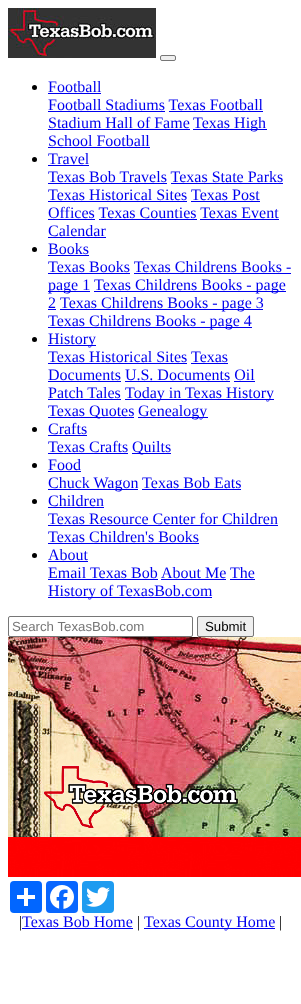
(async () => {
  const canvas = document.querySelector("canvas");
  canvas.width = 301;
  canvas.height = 1004;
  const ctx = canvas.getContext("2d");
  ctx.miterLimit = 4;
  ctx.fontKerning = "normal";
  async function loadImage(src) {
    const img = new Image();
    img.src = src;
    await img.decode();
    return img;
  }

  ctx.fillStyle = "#ffffff";
  ctx.fillRect(0, 0, 301, 1004);
  ctx.drawImage(await loadImage("img/1.png"), 8, 8, 148, 50);
  ctx.fillStyle = "#efefef";
  ctx.beginPath();
  ctx.roundRect(160.5, 55.5, 15, 5, 1.5);
  ctx.fill();
  ctx.strokeStyle = "#767676";
  ctx.stroke();
  ctx.fillStyle = "#000000";
  ctx.beginPath();
  ctx.arc(34.5, 87.5, 2.5, 0, Math.PI * 2);
  ctx.fill();
  for (const [x, y, w, h, color] of [
    [48, 93, 53, 1, "#0000ee"],
    [48, 111, 117, 1, "#0000ee"],
    [169, 111, 94, 1, "#0000ee"],
    [48, 129, 142, 1, "#0000ee"],
    [193, 129, 74, 1, "#0000ee"],
    [48, 147, 102, 1, "#0000ee"],
  ]) {
    ctx.fillStyle = color;
    ctx.fillRect(x, y, w, h);
  }
  ctx.fillStyle = "#000000";
  ctx.beginPath();
  ctx.arc(34.5, 159.5, 2.5, 0, Math.PI * 2);
  ctx.fill();
  for (const [x, y, w, h, color] of [
    [48, 165, 41, 1, "#0000ee"],
    [48, 183, 119, 1, "#0000ee"],
    [171, 183, 112, 1, "#0000ee"],
    [48, 201, 139, 1, "#0000ee"],
    [191, 201, 69, 1, "#0000ee"],
    [48, 219, 47, 1, "#0000ee"],
    [99, 219, 98, 1, "#0000ee"],
    [200, 219, 79, 1, "#0000ee"],
    [48, 237, 58, 1, "#0000ee"],
  ]) {
    ctx.fillStyle = color;
    ctx.fillRect(x, y, w, h);
  }
  ctx.fillStyle = "#000000";
  ctx.beginPath();
  ctx.arc(34.5, 249.5, 2.5, 0, Math.PI * 2);
  ctx.fill();
  for (const [x, y, w, h, color] of [
    [48, 255, 41, 1, "#0000ee"],
    [48, 273, 82, 1, "#0000ee"],
    [134, 273, 157, 1, "#0000ee"],
    [48, 291, 42, 1, "#0000ee"],
    [94, 291, 192, 1, "#0000ee"],
    [48, 309, 8, 1, "#0000ee"],
    [60, 309, 203, 1, "#0000ee"],
    [48, 327, 204, 1, "#0000ee"],
  ]) {
    ctx.fillStyle = color;
    ctx.fillRect(x, y, w, h);
  }
  ctx.fillStyle = "#000000";
  ctx.beginPath();
  ctx.arc(34.5, 339.5, 2.5, 0, Math.PI * 2);
  ctx.fill();
  for (const [x, y, w, h, color] of [
    [48, 345, 48, 1, "#0000ee"],
    [48, 363, 139, 1, "#0000ee"],
    [191, 363, 37, 1, "#0000ee"],
    [48, 381, 73, 1, "#0000ee"],
    [125, 381, 105, 1, "#0000ee"],
    [234, 381, 21, 1, "#0000ee"],
    [48, 399, 73, 1, "#0000ee"],
    [125, 399, 149, 1, "#0000ee"],
    [48, 417, 86, 1, "#0000ee"],
    [138, 417, 70, 1, "#0000ee"],
  ]) {
    ctx.fillStyle = color;
    ctx.fillRect(x, y, w, h);
  }
  ctx.fillStyle = "#000000";
  ctx.beginPath();
  ctx.arc(34.5, 429.5, 2.5, 0, Math.PI * 2);
  ctx.fill();
  for (const [x, y, w, h, color] of [
    [48, 435, 39, 1, "#0000ee"],
    [48, 453, 80, 1, "#0000ee"],
    [132, 453, 39, 1, "#0000ee"],
  ]) {
    ctx.fillStyle = color;
    ctx.fillRect(x, y, w, h);
  }
  ctx.fillStyle = "#000000";
  ctx.beginPath();
  ctx.arc(34.5, 465.5, 2.5, 0, Math.PI * 2);
  ctx.fill();
  for (const [x, y, w, h, color] of [
    [48, 471, 33, 1, "#0000ee"],
    [48, 489, 90, 1, "#0000ee"],
    [142, 489, 99, 1, "#0000ee"],
  ]) {
    ctx.fillStyle = color;
    ctx.fillRect(x, y, w, h);
  }
  ctx.fillStyle = "#000000";
  ctx.beginPath();
  ctx.arc(34.5, 501.5, 2.5, 0, Math.PI * 2);
  ctx.fill();
  for (const [x, y, w, h, color] of [
    [48, 507, 56, 1, "#0000ee"],
    [48, 525, 230, 1, "#0000ee"],
    [48, 543, 151, 1, "#0000ee"],
  ]) {
    ctx.fillStyle = color;
    ctx.fillRect(x, y, w, h);
  }
  ctx.fillStyle = "#000000";
  ctx.beginPath();
  ctx.arc(34.5, 555.5, 2.5, 0, Math.PI * 2);
  ctx.fill();
  for (const [x, y, w, h, color] of [
    [48, 561, 40, 1, "#0000ee"],
    [48, 579, 110, 1, "#0000ee"],
    [161, 579, 65, 1, "#0000ee"],
    [230, 579, 25, 1, "#0000ee"],
    [48, 597, 164, 1, "#0000ee"],
  ]) {
    ctx.fillStyle = color;
    ctx.fillRect(x, y, w, h);
  }
  ctx.beginPath();
  ctx.roundRect(8.5, 616.5, 184, 20, 1.5);
  ctx.stroke();
  ctx.fillStyle = "#efefef";
  ctx.beginPath();
  ctx.roundRect(197.5, 616.5, 56, 20, 1.5);
  ctx.fill();
  ctx.stroke();
  ctx.drawImage(await loadImage("img/2.png"), 8, 637, 293, 240);
  ctx.fillStyle = "#0166ff";
  ctx.beginPath();
  ctx.roundRect(10, 881, 32, 32, 4);
  ctx.fill();
  ctx.fillStyle = "#ffffff";
  ctx.fillRect(24, 888, 4, 18);
  ctx.fillRect(17, 895, 18, 4);
  ctx.fillStyle = "#0866ff";
  ctx.beginPath();
  ctx.roundRect(46, 881, 32, 32, 4);
  ctx.fill();
  ctx.drawImage(await loadImage("img/3.png"), 50, 885, 24, 24);
  ctx.fillStyle = "#1d9bf0";
  ctx.beginPath();
  ctx.roundRect(82, 881, 32, 32, 4);
  ctx.fill();
  ctx.drawImage(await loadImage("img/4.png"), 86, 887, 24, 20);
  ctx.fillStyle = "#0000ee";
  ctx.fillRect(22, 928, 111, 1);
  ctx.fillRect(144, 928, 131, 1);
  ctx.font = "16px Liberation Serif";
  for (const [text, x, y] of [
    ["Football", 48, 92],
    ["Football Stadiums Texas Football", 48, 110],
    ["Stadium Hall of Fame", 48, 128],
    ["Texas High", 193, 128],
    ["School Football", 48, 146],
    ["Travel", 48, 164],
    ["Texas Bob Travels Texas State Parks", 48, 182],
    ["Texas Historical Sites Texas Post", 48, 200],
    ["Offices Texas Counties Texas Event", 48, 218],
    ["Calendar", 48, 236],
    ["Books", 48, 254],
    ["Texas Books Texas Childrens Books -", 48, 272],
    ["page 1", 48, 290],
    ["Texas Childrens Books - page", 94, 290],
    ["2", 48, 308],
    ["Texas Childrens Books - page 3", 60, 308],
    ["Texas Childrens Books - page 4", 48, 326],
    ["History", 48, 344],
    ["Texas Historical Sites Texas", 48, 362],
    ["Documents U.S. Documents Oil", 48, 380],
    ["Patch Tales", 48, 398],
    ["Today in Texas History", 125, 398],
    ["Texas Quotes", 48, 416],
    ["Genealogy", 138, 416],
    ["Crafts", 48, 434],
    ["Texas Crafts", 48, 452],
    ["Quilts", 132, 452],
    ["Food", 48, 470],
    ["Chuck Wagon Texas Bob Eats", 48, 488],
    ["Children", 48, 506],
    ["Texas Resource Center for Children", 48, 524],
    ["Texas Children's Books", 48, 542],
    ["About", 48, 560],
    ["Email Texas Bob", 48, 578],
    ["About Me The", 161, 578],
    ["History of TexasBob.com", 48, 596],
  ]) {
    ctx.fillText(text, x, y);
  }
  ctx.font = "13.25px Liberation Sans";
  ctx.fillStyle = "#757575";
  ctx.fillText("Search TexasBob.com", 12, 631);
  ctx.fillStyle = "#000000";
  ctx.fillText("Submit", 205, 631);
  ctx.font = "16px Liberation Serif";
  ctx.fillText("|", 19, 927);
  ctx.fillStyle = "#0000ee";
  ctx.fillText("Texas Bob Home", 22, 927);
  ctx.fillStyle = "#000000";
  ctx.fillText("|", 137, 927);
  ctx.fillStyle = "#0000ee";
  ctx.fillText("Texas County Home", 144, 927);
  ctx.fillStyle = "#000000";
  ctx.fillText("|", 279, 927);
})();
